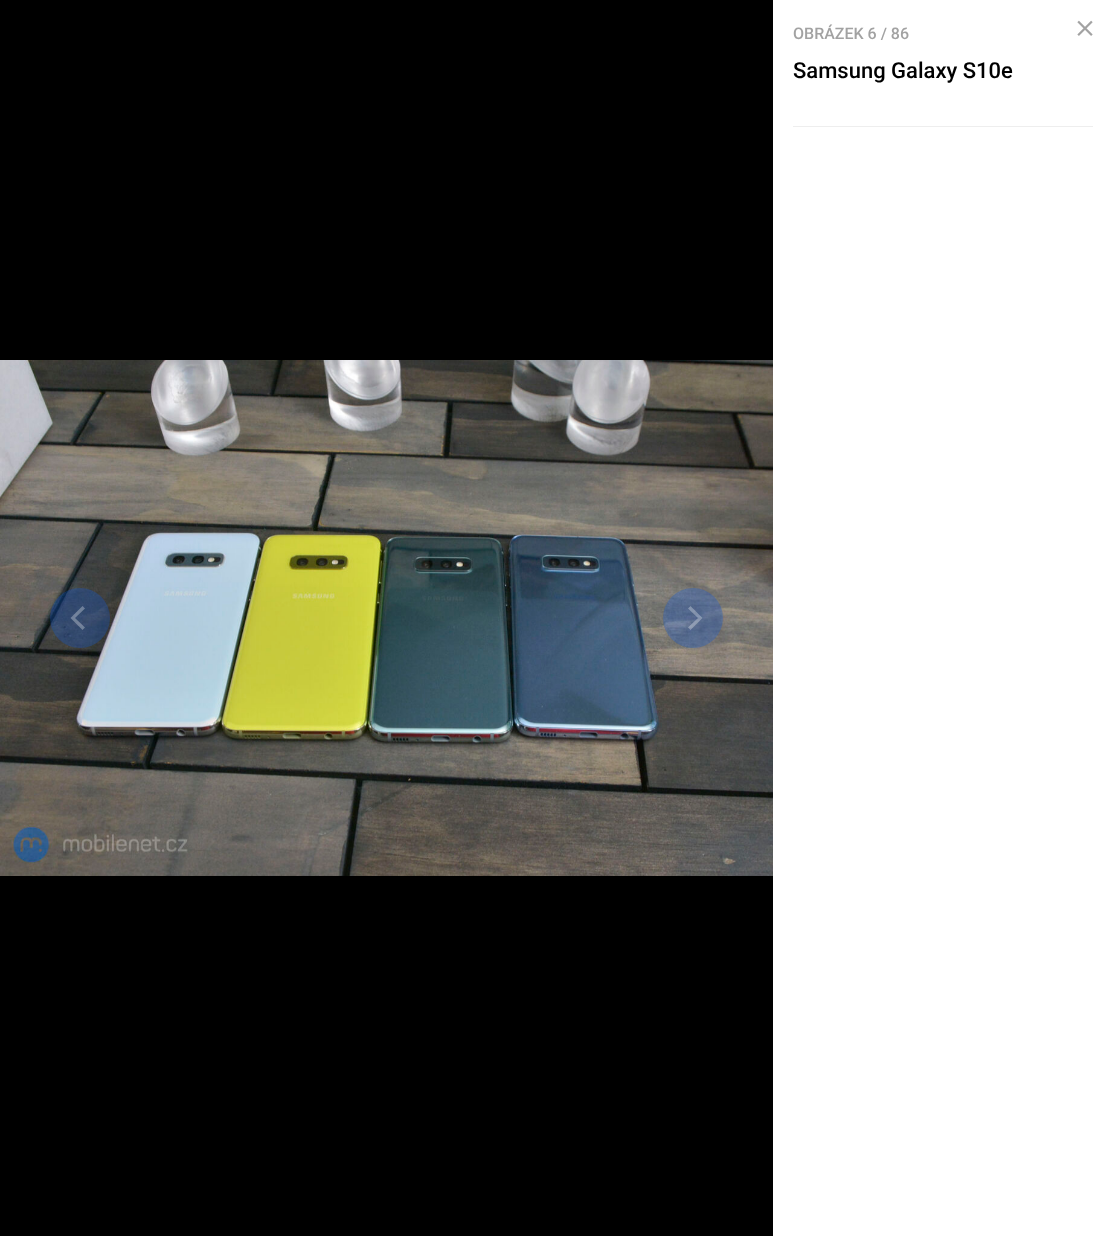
(async () => {
  const canvas = document.querySelector("canvas");
  canvas.width = 1113;
  canvas.height = 1236;
  const ctx = canvas.getContext("2d");
  ctx.miterLimit = 4;
  ctx.fontKerning = "normal";
  async function loadImage(src) {
    const img = new Image();
    img.src = src;
    await img.decode();
    return img;
  }
  let path;

  ctx.fillStyle = "#000000";
  ctx.fillRect(0, 0, 1113, 1236);
  ctx.fillStyle = "#ffffff";
  ctx.fillRect(773, 0, 340, 1236);
  ctx.fillStyle = "#eeeeee";
  ctx.fillRect(793, 126, 300, 1);
  ctx.drawImage(await loadImage("img/1.png"), 1077, 20, 16, 16);
  ctx.drawImage(await loadImage("img/2.png"), 0, 360, 773, 516);
  ctx.fillStyle = "rgba(15, 88, 217, 0.3)";
  ctx.beginPath();
  ctx.arc(80, 618, 30, 0, Math.PI * 2);
  ctx.fill();
  ctx.fillStyle = "rgba(255, 255, 255, 0.3)";
  path = new Path2D("M70.5 618L82.5 630L85 627.5L75 618L85 608.5L82.5 606Z");
  ctx.fill(path);
  ctx.fillStyle = "rgba(15, 88, 217, 0.3)";
  ctx.beginPath();
  ctx.arc(693, 618, 30, 0, Math.PI * 2);
  ctx.fill();
  ctx.fillStyle = "rgba(255, 255, 255, 0.3)";
  path = new Path2D("M702.5 618L690.5 606L688 608.5L698 618L688 627.5L690.5 630Z");
  ctx.fill(path);
  ctx.font = "500 16px Roboto";
  ctx.fillStyle = "#a2a2a2";
  ctx.fillText("OBRÁZEK 6 / 86", 793, 39);
  ctx.font = "500 22px Roboto";
  ctx.fillStyle = "#000000";
  ctx.fillText("Samsung Galaxy S10e", 793, 78);
})();
